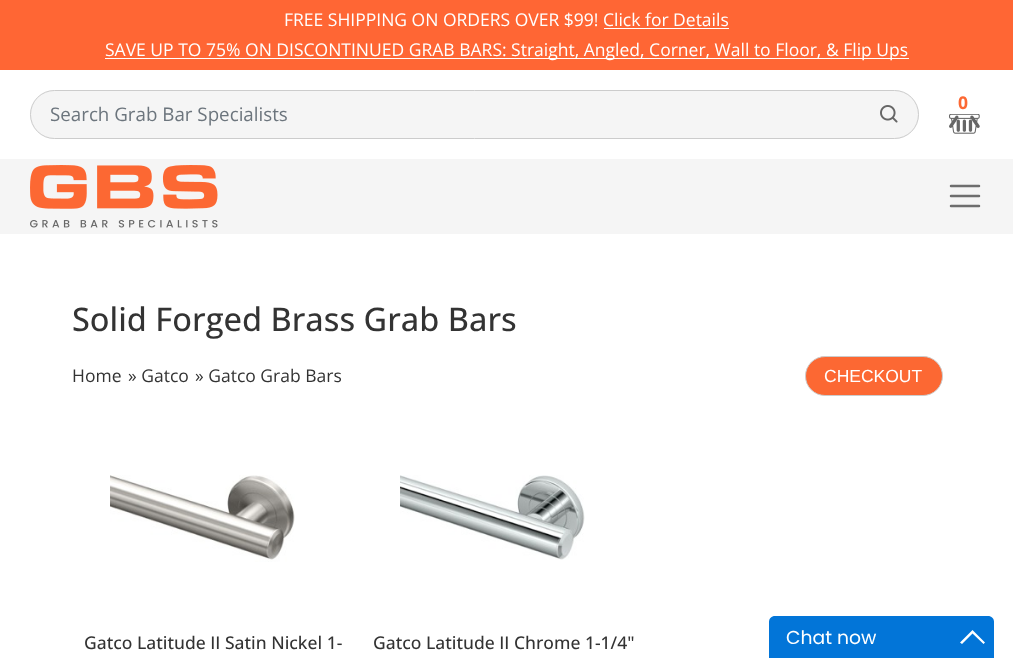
(async () => {
  const canvas = document.querySelector("canvas");
  canvas.width = 1013;
  canvas.height = 658;
  const ctx = canvas.getContext("2d");
  ctx.miterLimit = 4;
  ctx.fontKerning = "normal";
  async function loadImage(src) {
    const img = new Image();
    img.src = src;
    await img.decode();
    return img;
  }
  let path;

  ctx.fillStyle = "#ffffff";
  ctx.fillRect(0, 0, 1013, 658);
  for (const [x, y, w, h, color] of [
    [0, 0, 1013, 70, "#ff6634"],
    [604, 28, 125, 1, "#ffffff"],
    [105, 58, 804, 1, "#ffffff"],
  ]) {
    ctx.fillStyle = color;
    ctx.fillRect(x, y, w, h);
  }
  ctx.drawImage(await loadImage("img/1.png"), 949, 114, 31, 20);
  ctx.fillStyle = "#f5f5f5";
  ctx.beginPath();
  ctx.roundRect(30, 90, 889, 49, 24.5);
  ctx.fill();
  ctx.drawImage(await loadImage("img/2.png"), 880, 105, 18, 18);
  ctx.beginPath();
  ctx.roundRect(30.5, 90.5, 888, 48, 24);
  ctx.strokeStyle = "#cccccc";
  ctx.stroke();
  ctx.fillRect(0, 159, 1013, 75);
  ctx.drawImage(await loadImage("img/3.png"), 30, 165, 188, 63);
  path = new Path2D("M951 186H979M951 196H979M951 206H979");
  ctx.strokeStyle = "#6e6e6e";
  ctx.lineWidth = 2.5;
  ctx.lineCap = "round";
  ctx.stroke(path);
  ctx.fillStyle = "#fc6833";
  ctx.beginPath();
  ctx.roundRect(805.5, 356.5, 137, 39, 19.5);
  ctx.fill();
  ctx.strokeStyle = "#cccccc";
  ctx.lineWidth = 1;
  ctx.stroke();
  ctx.drawImage(await loadImage("img/4.png"), 110, 475, 185, 87);
  ctx.drawImage(await loadImage("img/5.png"), 400, 475, 185, 85);
  ctx.fillStyle = "#0275d8";
  path = new Path2D("M775 616H988C991.5 616 994 618.5 994 622V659H769V622C769 618.5 771.5 616 775 616Z");
  ctx.fill(path);
  ctx.fillStyle = "#ffffff";
  path = new Path2D("M972.5 630L985 642.5L983.5 644L972.5 633.5L962 644L960 642.5Z");
  ctx.fill(path);
  ctx.font = "17.5px Open Sans";
  ctx.fillText("FREE SHIPPING ON ORDERS OVER $99! Click for Details", 284, 26);
  ctx.fillText("SAVE UP TO 75% ON DISCONTINUED GRAB BARS: Straight, Angled, Corner, Wall to Floor, & Flip Ups", 105, 56);
  ctx.font = "bold 17.5px Open Sans";
  ctx.fillStyle = "#fc6833";
  ctx.fillText("0", 958, 109);
  ctx.font = "18.75px Open Sans";
  ctx.fillStyle = "#6c757d";
  ctx.fillText("Search Grab Bar Specialists", 50, 121);
  ctx.font = "500 32.5px Open Sans";
  ctx.fillStyle = "#333333";
  ctx.fillText("Solid Forged Brass Grab Bars", 72, 331);
  ctx.font = "17.5px Open Sans";
  for (const [text, x, y] of [
    ["Home", 72, 382],
    ["» Gatco", 128, 382],
    ["» Gatco Grab Bars", 195, 382],
  ]) {
    ctx.fillText(text, x, y);
  }
  ctx.font = "17.5px Liberation Sans";
  ctx.fillStyle = "#ffffff";
  ctx.fillText("CHECKOUT", 824, 382);
  ctx.font = "500 17.5px Open Sans";
  ctx.fillStyle = "#333333";
  ctx.fillText("Gatco Latitude II Satin Nickel 1-", 84, 649);
  ctx.fillText("Gatco Latitude II Chrome 1-1/4\"", 373, 649);
  ctx.font = "18.75px Poppins";
  ctx.fillStyle = "#ffffff";
  ctx.fillText("Chat now", 786, 644);
})();
